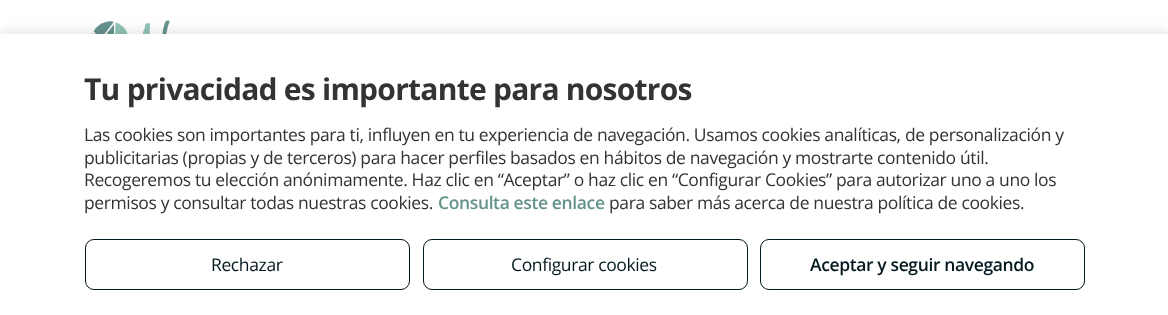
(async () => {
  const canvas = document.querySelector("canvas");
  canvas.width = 1168;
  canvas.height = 315;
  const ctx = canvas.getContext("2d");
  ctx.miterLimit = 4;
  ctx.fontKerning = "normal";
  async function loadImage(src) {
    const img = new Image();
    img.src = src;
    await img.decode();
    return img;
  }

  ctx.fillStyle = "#ffffff";
  ctx.fillRect(0, 0, 1168, 315);
  ctx.drawImage(await loadImage("img/1.png"), 92, 20, 78, 14);
  ctx.fillStyle = "rgba(0, 0, 0, 0.1)";
  ctx.filter = "blur(6px)";
  ctx.beginPath();
  ctx.rect(0, 31, 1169, 282);
  ctx.fill();
  ctx.filter = "none";
  ctx.fillStyle = "#ffffff";
  ctx.fillRect(0, 34, 1168, 281);
  ctx.beginPath();
  ctx.roundRect(85.5, 239.5, 324, 50, 8.5);
  ctx.strokeStyle = "#03181e";
  ctx.stroke();
  ctx.beginPath();
  ctx.roundRect(423.5, 239.5, 324, 50, 8.5);
  ctx.stroke();
  ctx.beginPath();
  ctx.roundRect(760.5, 239.5, 324, 50, 8.5);
  ctx.stroke();
  ctx.letterSpacing = "-0.75px";
  ctx.font = "bold 30px Open Sans";
  ctx.fillStyle = "#333333";
  ctx.fillText("Tu privacidad es importante para nosotros", 84, 100);
  ctx.letterSpacing = "-0.38px";
  ctx.font = "17.5px Open Sans";
  for (const [text, x, y] of [
    ["Las cookies son importantes para ti, influyen en tu experiencia de navegación. Usamos cookies analíticas, de personalización y", 84, 141],
    ["publicitarias (propias y de terceros) para hacer perfiles basados en hábitos de navegación y mostrarte contenido útil.", 84, 164],
    ["Recogeremos tu elección anónimamente. Haz clic en “Aceptar” o haz clic en “Configurar Cookies” para autorizar uno a uno los", 84, 186],
    ["permisos y consultar todas nuestras cookies.", 84, 209],
  ]) {
    ctx.fillText(text, x, y);
  }
  ctx.font = "600 17.5px Open Sans";
  ctx.fillStyle = "#64938b";
  ctx.fillText("Consulta este enlace", 438, 209);
  ctx.font = "17.5px Open Sans";
  ctx.fillStyle = "#333333";
  ctx.fillText("para saber más acerca de nuestra política de cookies.", 609, 209);
  ctx.fillStyle = "#03181e";
  ctx.fillText("Rechazar", 211, 271);
  ctx.fillText("Configurar cookies", 511, 271);
  ctx.font = "600 17.5px Open Sans";
  ctx.fillText("Aceptar y seguir navegando", 810, 271);
})();
